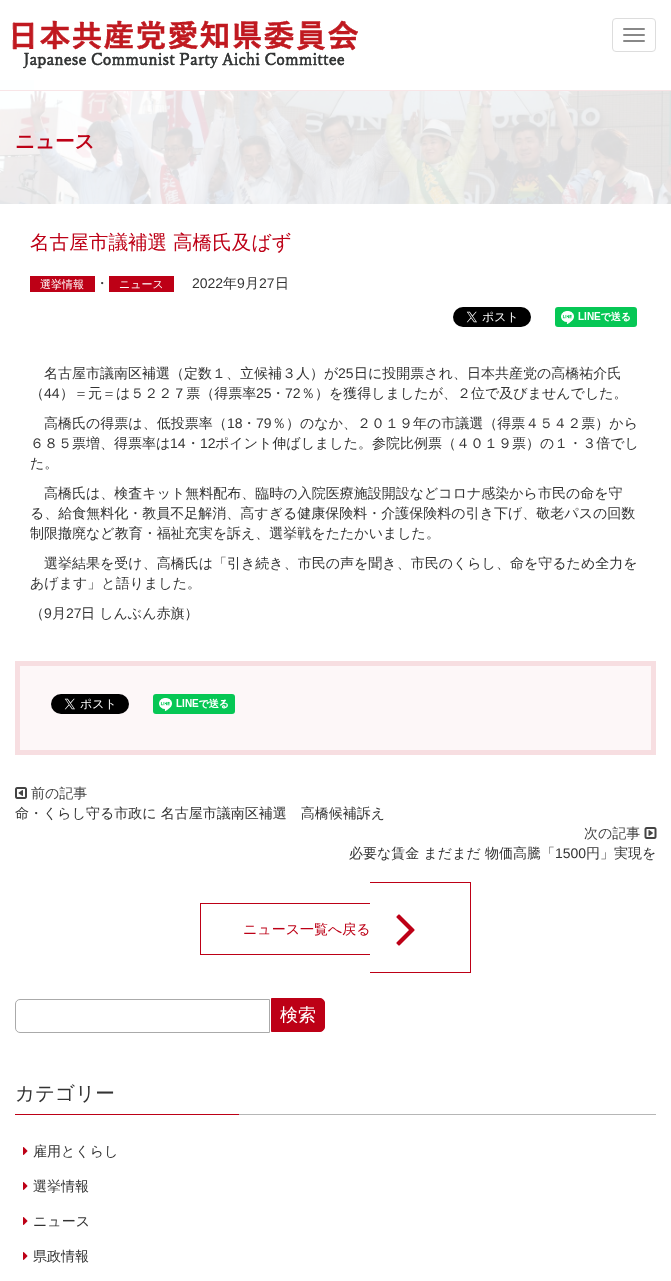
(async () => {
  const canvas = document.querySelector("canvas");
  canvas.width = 671;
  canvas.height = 1281;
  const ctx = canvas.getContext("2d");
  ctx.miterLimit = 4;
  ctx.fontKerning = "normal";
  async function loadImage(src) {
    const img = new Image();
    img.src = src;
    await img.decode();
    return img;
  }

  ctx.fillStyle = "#ffffff";
  ctx.fillRect(0, 0, 671, 1281);
  ctx.drawImage(await loadImage("img/2.png"), 0, 80, 671, 124);
  ctx.fillStyle = "rgba(255, 255, 255, 0.98)";
  ctx.fillRect(34, 80, 637, 10);
  ctx.fillStyle = "#f8e5e7";
  ctx.fillRect(0, 90, 671, 1);
  ctx.drawImage(await loadImage("img/1.png"), 12, 20, 346, 49);
  ctx.beginPath();
  ctx.roundRect(612.5, 18.5, 43, 33, 3.5);
  ctx.strokeStyle = "#dddddd";
  ctx.stroke();
  ctx.fillStyle = "#888888";
  ctx.beginPath();
  ctx.roundRect(623, 28, 22, 2, 1);
  ctx.fill();
  ctx.beginPath();
  ctx.roundRect(623, 34, 22, 2, 1);
  ctx.fill();
  ctx.beginPath();
  ctx.roundRect(623, 40, 22, 2, 1);
  ctx.fill();
  ctx.fillStyle = "#bd0016";
  ctx.fillRect(30, 276, 65, 16);
  ctx.fillRect(109, 276, 65, 16);
  ctx.drawImage(await loadImage("img/3.png"), 453, 307, 78, 20);
  ctx.drawImage(await loadImage("img/4.png"), 555, 307, 82, 20);
  ctx.fillStyle = "#fdf7f8";
  ctx.beginPath();
  ctx.rect(17.5, 663.5, 636, 89);
  ctx.fill();
  ctx.strokeStyle = "#f7dee1";
  ctx.lineWidth = 5;
  ctx.stroke();
  ctx.drawImage(await loadImage("img/5.png"), 51, 694, 78, 20);
  ctx.drawImage(await loadImage("img/6.png"), 153, 694, 82, 20);
  ctx.drawImage(await loadImage("img/7.png"), 15, 787, 12, 12);
  ctx.drawImage(await loadImage("img/8.png"), 644, 827, 13, 12);
  for (const [x, y, w, h, color] of [
    [200, 903, 170, 1, "#bd0016"],
    [200, 954, 170, 1, "#bd0016"],
    [200, 903, 1, 52, "#bd0016"],
    [370, 882, 101, 1, "#bd0016"],
    [470, 882, 1, 91, "#bd0016"],
    [370, 972, 101, 1, "#bd0016"],
  ]) {
    ctx.fillStyle = color;
    ctx.fillRect(x, y, w, h);
  }
  ctx.drawImage(await loadImage("img/9.png"), 396, 914, 19, 32);
  ctx.beginPath();
  ctx.roundRect(15.5, 999.5, 254, 33, [4.5, 0, 0, 4.5]);
  ctx.strokeStyle = "#aaaaaa";
  ctx.lineWidth = 1;
  ctx.stroke();
  ctx.beginPath();
  ctx.roundRect(271.5, 998.5, 53, 33, [0, 4.5, 4.5, 0]);
  ctx.fill();
  ctx.strokeStyle = "#bd0016";
  ctx.stroke();
  ctx.fillStyle = "#b6b6b6";
  ctx.fillRect(239, 1114, 417, 1);
  ctx.fillStyle = "#bd0016";
  ctx.fillRect(15, 1114, 224, 1);
  ctx.drawImage(await loadImage("img/10.png"), 23, 1147, 5, 8);
  ctx.drawImage(await loadImage("img/10.png"), 23, 1182, 5, 8);
  ctx.drawImage(await loadImage("img/10.png"), 23, 1217, 5, 8);
  ctx.drawImage(await loadImage("img/10.png"), 23, 1252, 5, 8);
  ctx.font = "bold 19.6px WenQuanYi Zen Hei";
  ctx.fillText("ニュース", 15, 148);
  ctx.font = "500 19.6px WenQuanYi Zen Hei";
  ctx.fillText("名古屋市議補選 高橋氏及ばず", 30, 249);
  ctx.font = "500 11px WenQuanYi Zen Hei";
  ctx.fillStyle = "#ffffff";
  ctx.fillText("選挙情報", 40, 288);
  ctx.font = "500 14px WenQuanYi Zen Hei";
  ctx.fillStyle = "#333333";
  ctx.fillText("・", 95, 288);
  ctx.font = "500 11px WenQuanYi Zen Hei";
  ctx.fillStyle = "#ffffff";
  ctx.fillText("ニュース", 119, 288);
  ctx.font = "14px Liberation Sans";
  ctx.fillStyle = "#333333";
  ctx.fillText("2022", 192, 288);
  ctx.font = "500 14px WenQuanYi Zen Hei";
  ctx.fillText("年", 223, 288);
  ctx.font = "14px Liberation Sans";
  ctx.fillText("9", 237, 288);
  ctx.font = "500 14px WenQuanYi Zen Hei";
  ctx.fillText("月", 245, 288);
  ctx.font = "14px Liberation Sans";
  ctx.fillText("27", 259, 288);
  ctx.font = "500 14px WenQuanYi Zen Hei";
  ctx.fillText("日", 275, 288);
  ctx.fillText("名古屋市議南区補選（定数１、立候補３人）が", 44, 378);
  ctx.font = "14px Liberation Sans";
  ctx.fillText("25", 338, 378);
  ctx.font = "500 14px WenQuanYi Zen Hei";
  ctx.fillText("日に投開票され、日本共産党の高橋祐介氏", 354, 378);
  ctx.fillText("（", 30, 398);
  ctx.font = "14px Liberation Sans";
  ctx.fillText("44", 44, 398);
  ctx.font = "500 14px WenQuanYi Zen Hei";
  ctx.fillText("）＝元＝は５２２７票（得票率", 60, 398);
  ctx.font = "14px Liberation Sans";
  ctx.fillText("25", 256, 398);
  ctx.font = "500 14px WenQuanYi Zen Hei";
  ctx.fillText("・", 271, 398);
  ctx.font = "14px Liberation Sans";
  ctx.fillText("72", 285, 398);
  ctx.font = "500 14px WenQuanYi Zen Hei";
  ctx.fillText("％）を獲得しましたが、２位で及びませんでした。", 301, 398);
  ctx.fillText("高橋氏の得票は、低投票率（", 44, 428);
  ctx.font = "14px Liberation Sans";
  ctx.fillText("18", 227, 428);
  ctx.font = "500 14px WenQuanYi Zen Hei";
  ctx.fillText("・", 242, 428);
  ctx.font = "14px Liberation Sans";
  ctx.fillText("79", 256, 428);
  ctx.font = "500 14px WenQuanYi Zen Hei";
  ctx.fillText("％）のなか、２０１９年の市議選（得票４５４２票）から", 272, 428);
  ctx.fillText("６８５票増、得票率は", 30, 448);
  ctx.font = "14px Liberation Sans";
  ctx.fillText("14", 170, 448);
  ctx.font = "500 14px WenQuanYi Zen Hei";
  ctx.fillText("・", 186, 448);
  ctx.font = "14px Liberation Sans";
  ctx.fillText("12", 200, 448);
  ctx.font = "500 14px WenQuanYi Zen Hei";
  for (const [text, x, y] of [
    ["ポイント伸ばしました。参院比例票（４０１９票）の１・３倍でし", 215, 448],
    ["た。", 30, 468],
    ["高橋氏は、検査キット無料配布、臨時の入院医療施設開設などコロナ感染から市民の命を守", 44, 498],
    ["る、給食無料化・教員不足解消、高すぎる健康保険料・介護保険料の引き下げ、敬老パスの回数", 30, 518],
    ["制限撤廃など教育・福祉充実を訴え、選挙戦をたたかいました。", 30, 538],
    ["選挙結果を受け、高橋氏は「引き続き、市民の声を聞き、市民のくらし、命を守るため全力を", 44, 568],
    ["あげます」と語りました。", 30, 588],
    ["（", 30, 618],
  ]) {
    ctx.fillText(text, x, y);
  }
  ctx.font = "14px Liberation Sans";
  ctx.fillText("9", 44, 618);
  ctx.font = "500 14px WenQuanYi Zen Hei";
  ctx.fillText("月", 52, 618);
  ctx.font = "14px Liberation Sans";
  ctx.fillText("27", 66, 618);
  ctx.font = "500 14px WenQuanYi Zen Hei";
  ctx.fillText("日 しんぶん赤旗）", 81, 618);
  ctx.fillStyle = "#444444";
  ctx.fillText("前の記事", 31, 798);
  ctx.fillStyle = "#333333";
  ctx.fillText("命・くらし守る市政に 名古屋市議南区補選　高橋候補訴え", 15, 818);
  ctx.fillStyle = "#444444";
  ctx.fillText("次の記事", 584, 838);
  ctx.fillStyle = "#333333";
  ctx.fillText("必要な賃金 まだまだ 物価高騰「", 349, 858);
  ctx.font = "14px Liberation Sans";
  ctx.fillText("1500", 555, 858);
  ctx.font = "500 14px WenQuanYi Zen Hei";
  ctx.fillText("円」実現を", 586, 858);
  ctx.fillStyle = "#bd0016";
  ctx.fillText("ニュース一覧へ戻る", 243, 934);
  ctx.font = "500 18px WenQuanYi Zen Hei";
  ctx.fillStyle = "#ffffff";
  ctx.fillText("検索", 280, 1021);
  ctx.font = "500 19.6px WenQuanYi Zen Hei";
  ctx.fillStyle = "#333333";
  ctx.fillText("カテゴリー", 15, 1100);
  ctx.font = "500 14px WenQuanYi Zen Hei";
  for (const [text, x, y] of [
    ["雇用とくらし", 33, 1156],
    ["選挙情報", 33, 1191],
    ["ニュース", 33, 1226],
    ["県政情報", 33, 1261],
  ]) {
    ctx.fillText(text, x, y);
  }
})();
